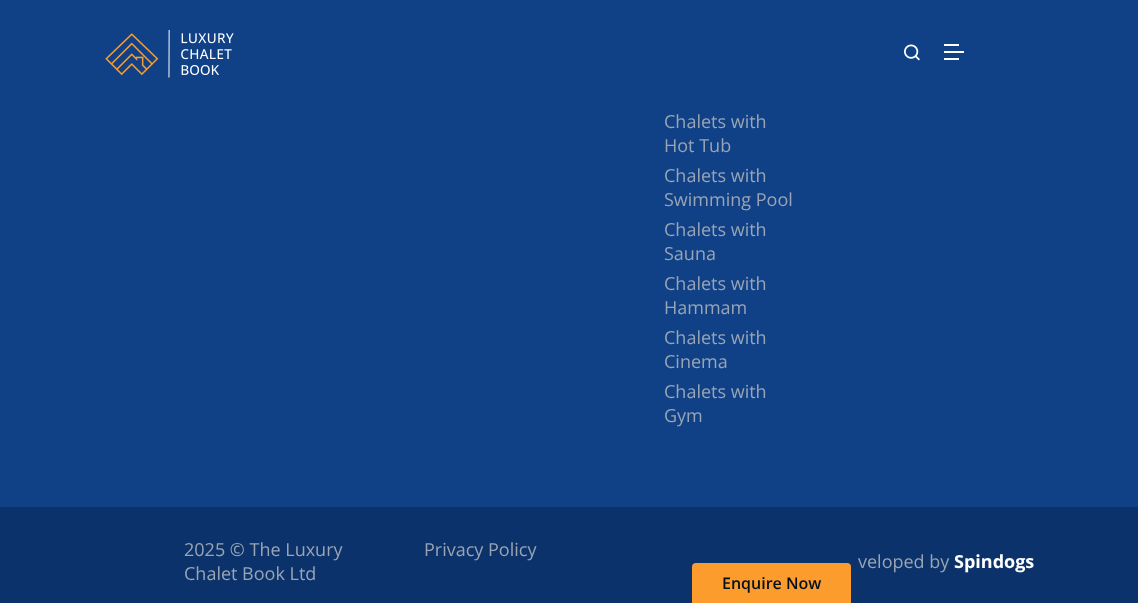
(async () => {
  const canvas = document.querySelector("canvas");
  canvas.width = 1138;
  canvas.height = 603;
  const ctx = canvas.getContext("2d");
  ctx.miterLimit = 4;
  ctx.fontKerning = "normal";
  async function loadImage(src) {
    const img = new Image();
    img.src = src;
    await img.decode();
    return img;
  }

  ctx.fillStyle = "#104187";
  ctx.fillRect(0, 0, 1138, 603);
  ctx.fillStyle = "#0b326a";
  ctx.fillRect(0, 507, 1138, 96);
  ctx.drawImage(await loadImage("img/1.png"), 105, 30, 129, 48);
  ctx.drawImage(await loadImage("img/2.png"), 904, 44, 16, 17);
  for (const [x, y, w, h, color] of [
    [944, 51, 20, 2, "#ffffff"],
    [944, 44, 15, 2, "#ffffff"],
    [944, 58, 15, 2, "#ffffff"],
  ]) {
    ctx.fillStyle = color;
    ctx.fillRect(x, y, w, h);
  }
  ctx.fillStyle = "#fc9c2c";
  ctx.beginPath();
  ctx.roundRect(692, 563, 159, 40, [4, 4, 0, 0]);
  ctx.fill();
  ctx.font = "18px Open Sans";
  ctx.fillStyle = "#99a5b4";
  for (const [text, x, y] of [
    ["Chalets with", 664, 128],
    ["Hot Tub", 664, 152],
    ["Chalets with", 664, 182],
    ["Swimming Pool", 664, 206],
    ["Chalets with", 664, 236],
    ["Sauna", 664, 260],
    ["Chalets with", 664, 290],
    ["Hammam", 664, 314],
    ["Chalets with", 664, 344],
    ["Cinema", 664, 368],
    ["Chalets with", 664, 398],
    ["Gym", 664, 422],
    ["2025 © The Luxury", 184, 556],
    ["Chalet Book Ltd", 184, 580],
    ["Privacy Policy", 424, 556],
    ["veloped by", 858, 568],
  ]) {
    ctx.fillText(text, x, y);
  }
  ctx.font = "bold 18px Open Sans";
  ctx.fillStyle = "#ffffff";
  ctx.fillText("Spindogs", 954, 568);
  ctx.font = "600 16px Open Sans";
  ctx.fillStyle = "#041021";
  ctx.fillText("Enquire Now", 722, 589);
})();
